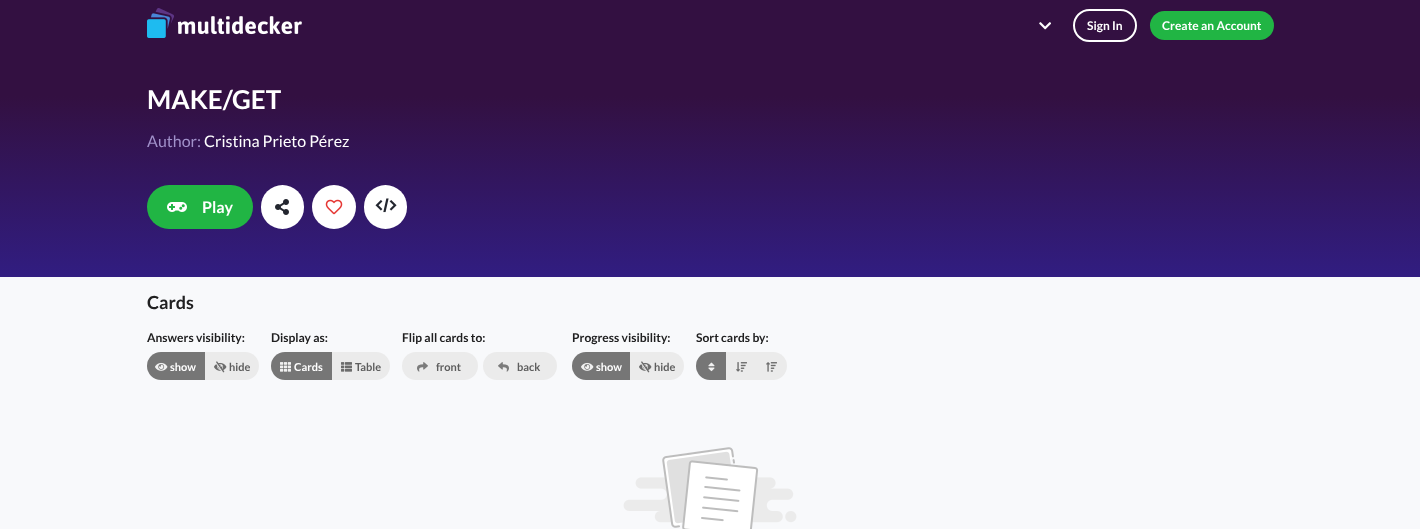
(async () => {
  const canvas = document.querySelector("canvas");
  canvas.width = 1420;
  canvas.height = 529;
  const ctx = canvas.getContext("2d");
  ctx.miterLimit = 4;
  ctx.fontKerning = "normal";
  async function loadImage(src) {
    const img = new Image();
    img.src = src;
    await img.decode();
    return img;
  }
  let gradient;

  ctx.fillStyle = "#f8f9fb";
  ctx.fillRect(0, 0, 1420, 529);
  ctx.fillStyle = "#331041";
  ctx.fillRect(0, 0, 1420, 51);
  ctx.drawImage(await loadImage("img/1.png"), 147, 8, 155, 30);
  ctx.drawImage(await loadImage("img/2.png"), 1039, 22, 12, 8);
  ctx.beginPath();
  ctx.roundRect(1074, 10, 62, 31, 15.5);
  ctx.strokeStyle = "#ffffff";
  ctx.lineWidth = 2;
  ctx.stroke();
  ctx.fillStyle = "#21b544";
  ctx.beginPath();
  ctx.roundRect(1150, 11, 124, 29, 14.5);
  ctx.fill();
  gradient = ctx.createLinearGradient(710, 51, 710, 277);
  gradient.addColorStop(0.2, "#331041");
  gradient.addColorStop(1, "#311d81");
  ctx.fillStyle = gradient;
  ctx.fillRect(0, 51, 1420, 226);
  ctx.fillStyle = "#21b544";
  ctx.beginPath();
  ctx.roundRect(147, 185, 106, 44, 22);
  ctx.fill();
  ctx.drawImage(await loadImage("img/3.png"), 167, 202, 20, 10);
  ctx.fillStyle = "#ffffff";
  ctx.beginPath();
  ctx.roundRect(261, 185, 43, 44, 21.5);
  ctx.fill();
  ctx.drawImage(await loadImage("img/4.png"), 275, 199, 14, 16);
  ctx.beginPath();
  ctx.arc(334, 207, 22, 0, Math.PI * 2);
  ctx.fill();
  ctx.drawImage(await loadImage("img/5.png"), 325, 199, 18, 16);
  ctx.beginPath();
  ctx.roundRect(364, 185, 43, 44, 21.5);
  ctx.fill();
  ctx.drawImage(await loadImage("img/6.png"), 375, 198, 22, 15);
  ctx.fillStyle = "#767676";
  ctx.beginPath();
  ctx.roundRect(147, 352, 58, 28, [14, 0, 0, 14]);
  ctx.fill();
  ctx.drawImage(await loadImage("img/7.png"), 155, 362, 13, 9);
  ctx.fillStyle = "#ebebeb";
  ctx.beginPath();
  ctx.roundRect(205, 352, 54, 28, [0, 14, 14, 0]);
  ctx.fill();
  ctx.drawImage(await loadImage("img/8.png"), 214, 361, 13, 12);
  ctx.fillStyle = "#767676";
  ctx.beginPath();
  ctx.roundRect(271, 352, 61, 28, [14, 0, 0, 14]);
  ctx.fill();
  ctx.drawImage(await loadImage("img/9.png"), 280, 362, 11, 10);
  ctx.fillStyle = "#ebebeb";
  ctx.beginPath();
  ctx.roundRect(332, 352, 58, 28, [0, 14, 14, 0]);
  ctx.fill();
  ctx.drawImage(await loadImage("img/10.png"), 341, 362, 11, 10);
  ctx.beginPath();
  ctx.roundRect(402, 352, 76, 28, 14);
  ctx.fill();
  ctx.drawImage(await loadImage("img/11.png"), 417, 362, 11, 10);
  ctx.beginPath();
  ctx.roundRect(483, 352, 74, 28, 14);
  ctx.fill();
  ctx.drawImage(await loadImage("img/12.png"), 498, 362, 11, 10);
  ctx.fillStyle = "#767676";
  ctx.beginPath();
  ctx.roundRect(572, 352, 58, 28, [14, 0, 0, 14]);
  ctx.fill();
  ctx.drawImage(await loadImage("img/7.png"), 581, 362, 13, 9);
  ctx.fillStyle = "#ebebeb";
  ctx.beginPath();
  ctx.roundRect(630, 352, 54, 28, [0, 14, 14, 0]);
  ctx.fill();
  ctx.drawImage(await loadImage("img/8.png"), 639, 361, 13, 12);
  ctx.fillStyle = "#767676";
  ctx.beginPath();
  ctx.roundRect(696, 352, 30, 28, [14, 0, 0, 14]);
  ctx.fill();
  ctx.drawImage(await loadImage("img/13.png"), 708, 362, 7, 10);
  ctx.fillStyle = "#ebebeb";
  ctx.fillRect(726, 352, 30, 28);
  ctx.drawImage(await loadImage("img/14.png"), 736, 362, 11, 10);
  ctx.beginPath();
  ctx.roundRect(756, 352, 31, 28, [0, 14, 14, 0]);
  ctx.fill();
  ctx.drawImage(await loadImage("img/15.png"), 766, 362, 11, 10);
  ctx.drawImage(await loadImage("img/16.png"), 623, 447, 174, 82);
  ctx.font = "bold 12px Lato";
  ctx.fillStyle = "#ffffff";
  ctx.fillText("Sign In", 1087, 30);
  ctx.fillText("Create an Account", 1162, 30);
  ctx.font = "bold 26px Lato";
  ctx.fillText("MAKE/GET", 147, 109);
  ctx.font = "16px Lato";
  ctx.fillStyle = "#a191ca";
  ctx.fillText("Author:", 147, 147);
  ctx.fillStyle = "#ffffff";
  ctx.fillText("Cristina Prieto Pérez", 204, 147);
  ctx.font = "bold 16px Lato";
  ctx.fillText("Play", 202, 213);
  ctx.font = "bold 18px Lato";
  ctx.fillStyle = "#202021";
  ctx.fillText("Cards", 147, 309);
  ctx.font = "bold 12px Lato";
  ctx.fillText("Answers visibility:", 147, 342);
  ctx.font = "bold 11px Lato";
  ctx.fillStyle = "#ffffff";
  ctx.fillText("show", 170, 371);
  ctx.fillStyle = "#5e5e5e";
  ctx.fillText("hide", 229, 371);
  ctx.font = "bold 12px Lato";
  ctx.fillStyle = "#202021";
  ctx.fillText("Display as:", 271, 342);
  ctx.font = "bold 11px Lato";
  ctx.fillStyle = "#ffffff";
  ctx.fillText("Cards", 294, 371);
  ctx.fillStyle = "#5e5e5e";
  ctx.fillText("Table", 355, 371);
  ctx.font = "bold 12px Lato";
  ctx.fillStyle = "#202021";
  ctx.fillText("Flip all cards to:", 402, 342);
  ctx.font = "bold 11px Lato";
  ctx.fillStyle = "#5e5e5e";
  ctx.fillText("front", 436, 371);
  ctx.fillText("back", 517, 371);
  ctx.font = "bold 12px Lato";
  ctx.fillStyle = "#202021";
  ctx.fillText("Progress visibility:", 572, 342);
  ctx.font = "bold 11px Lato";
  ctx.fillStyle = "#ffffff";
  ctx.fillText("show", 596, 371);
  ctx.fillStyle = "#5e5e5e";
  ctx.fillText("hide", 654, 371);
  ctx.font = "bold 12px Lato";
  ctx.fillStyle = "#202021";
  ctx.fillText("Sort cards by:", 696, 342);
})();
